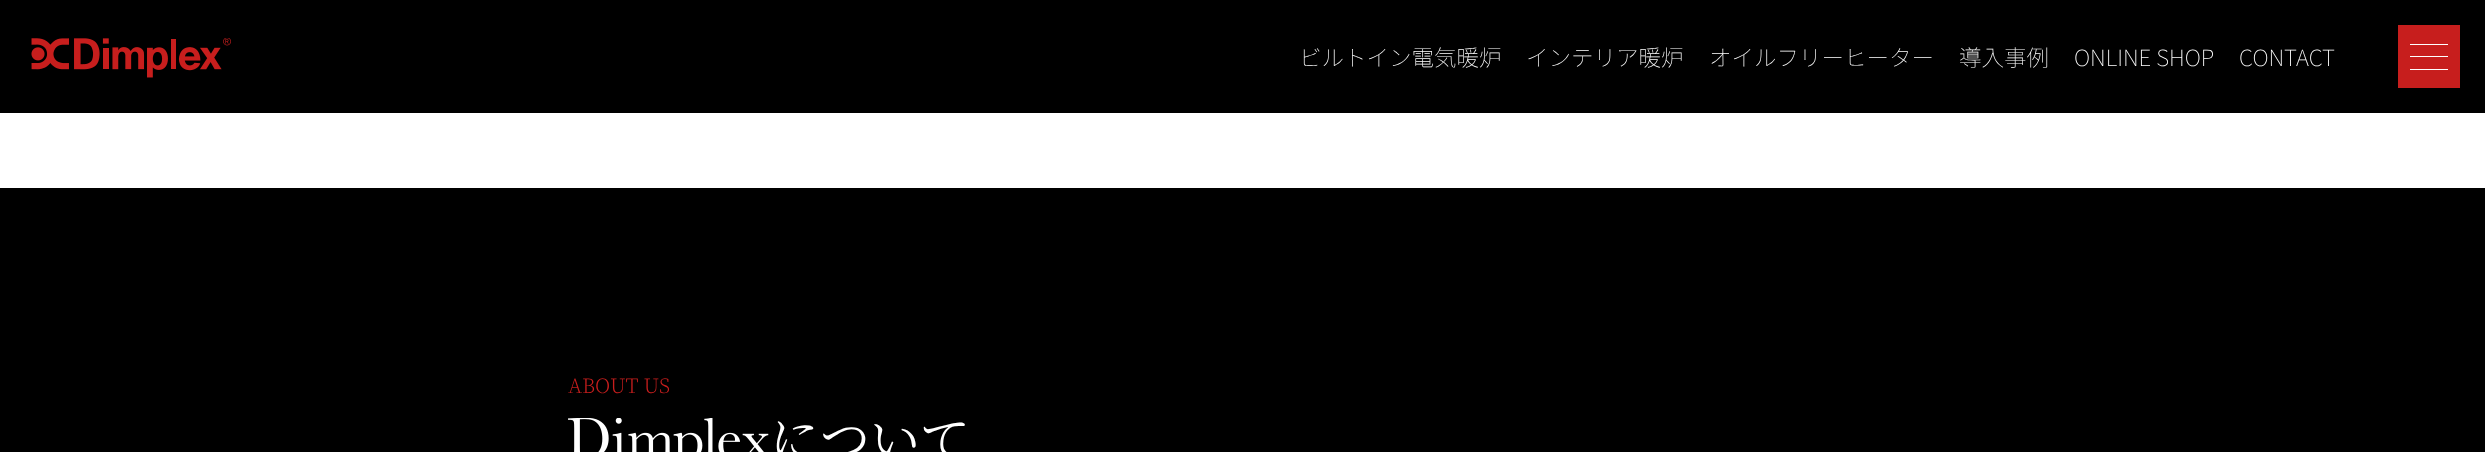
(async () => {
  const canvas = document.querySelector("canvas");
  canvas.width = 2485;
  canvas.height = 452;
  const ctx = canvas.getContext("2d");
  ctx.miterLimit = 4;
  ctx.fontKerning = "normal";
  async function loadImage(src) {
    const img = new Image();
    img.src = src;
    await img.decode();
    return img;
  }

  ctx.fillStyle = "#ffffff";
  ctx.fillRect(0, 0, 2485, 452);
  ctx.fillStyle = "#000000";
  ctx.fillRect(0, 0, 2485, 113);
  ctx.drawImage(await loadImage("img/1.png"), 31, 38, 200, 40);
  for (const [x, y, w, h, color] of [
    [2398, 25, 62, 63, "#c71e1d"],
    [2410, 44, 38, 1, "#ffffff"],
    [2410, 56, 38, 1, "#ffffff"],
    [2410, 69, 38, 1, "#ffffff"],
    [0, 188, 2485, 264, "#000000"],
  ]) {
    ctx.fillStyle = color;
    ctx.fillRect(x, y, w, h);
  }
  ctx.drawImage(await loadImage("img/2.png"), 568, 418, 201, 34);
  ctx.font = "100 22.5px Noto Sans JP";
  ctx.fillStyle = "#ffffff";
  for (const [text, x, y] of [
    ["ビルトイン電気暖炉", 1299, 66],
    ["インテリア暖炉", 1526, 66],
    ["オイルフリーヒーター", 1709, 66],
    ["導入事例", 1959, 66],
    ["ONLINE SHOP", 2074, 66],
    ["CONTACT", 2239, 66],
  ]) {
    ctx.fillText(text, x, y);
  }
  ctx.font = "200 20px Noto Serif JP";
  ctx.fillStyle = "#c71e1d";
  ctx.fillText("ABOUT US", 568, 393);
  ctx.font = "50px Noto Serif JP";
  ctx.fillStyle = "#ffffff";
  ctx.fillText("について", 770, 458);
})();
